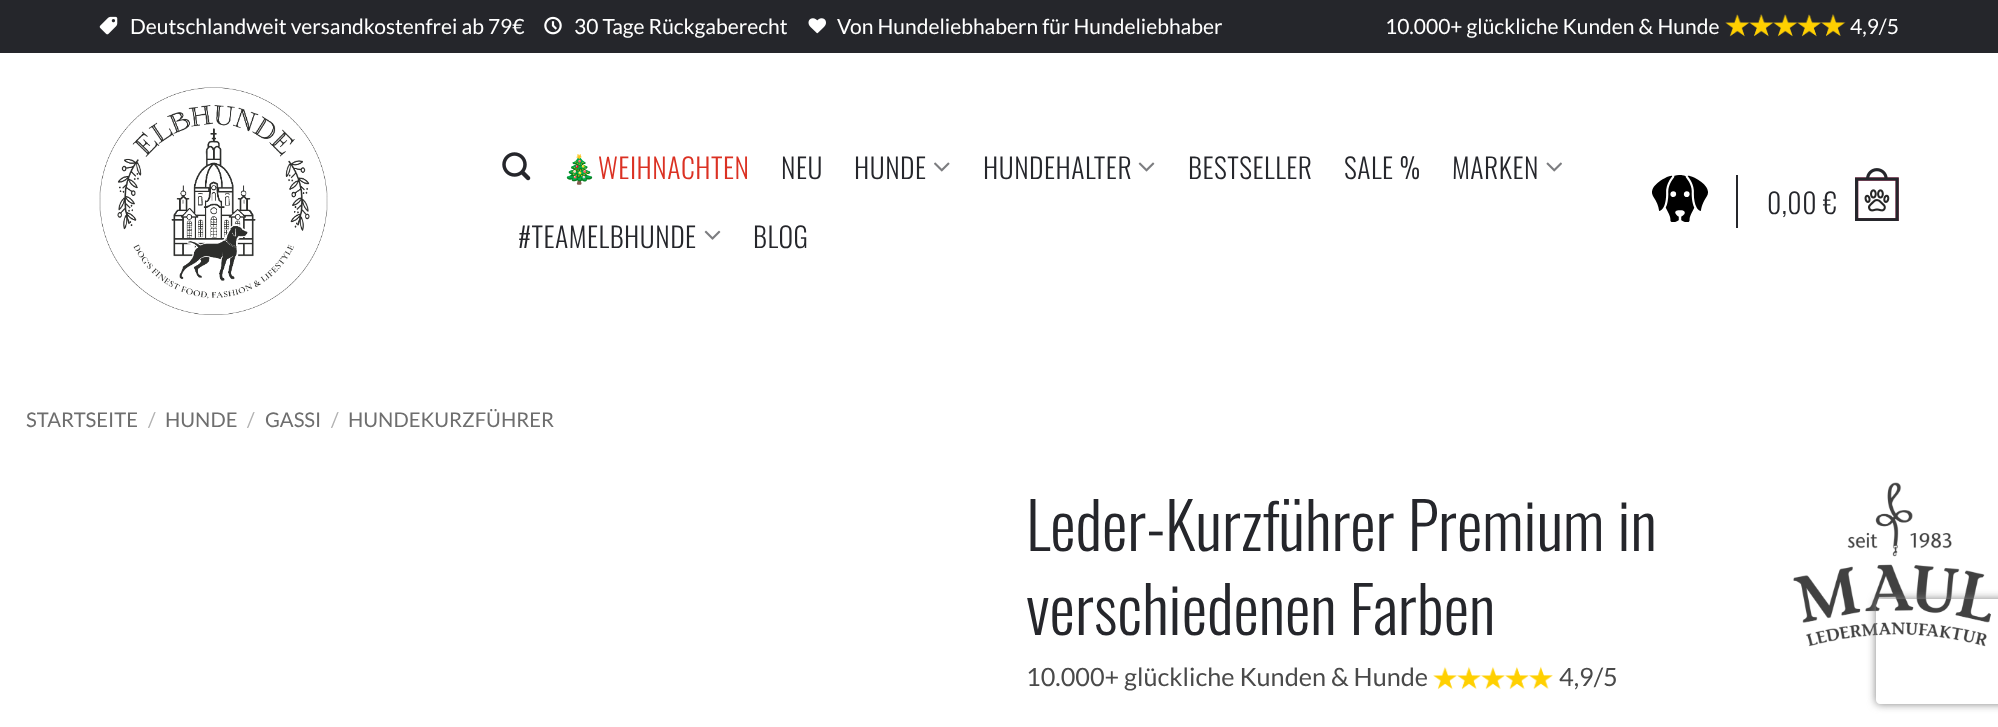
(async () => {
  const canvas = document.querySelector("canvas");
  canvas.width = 1998;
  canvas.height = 727;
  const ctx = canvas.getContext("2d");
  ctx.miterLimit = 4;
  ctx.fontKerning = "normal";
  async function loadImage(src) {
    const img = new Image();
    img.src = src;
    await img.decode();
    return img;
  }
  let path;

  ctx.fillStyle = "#ffffff";
  ctx.fillRect(0, 0, 1998, 727);
  ctx.fillStyle = "#25262b";
  ctx.fillRect(0, 0, 1998, 53);
  ctx.drawImage(await loadImage("img/1.png"), 99, 16, 19, 19);
  ctx.drawImage(await loadImage("img/2.png"), 544, 16, 18, 19);
  ctx.drawImage(await loadImage("img/3.png"), 808, 18, 18, 16);
  ctx.drawImage(await loadImage("img/4.png"), 1725, 14, 121, 23);
  ctx.drawImage(await loadImage("img/5.png"), 99, 87, 229, 228);
  ctx.drawImage(await loadImage("img/6.png"), 502, 152, 29, 29);
  ctx.drawImage(await loadImage("img/7.png"), 934, 162, 16, 10);
  ctx.drawImage(await loadImage("img/8.png"), 1138, 162, 17, 10);
  ctx.drawImage(await loadImage("img/9.png"), 1546, 162, 16, 10);
  ctx.drawImage(await loadImage("img/10.png"), 704, 230, 17, 10);
  ctx.drawImage(await loadImage("img/11.png"), 1652, 175, 56, 47);
  ctx.fillRect(1736, 175, 2, 53);
  ctx.drawImage(await loadImage("img/12.png"), 1855, 168, 44, 53);
  ctx.drawImage(await loadImage("img/13.png"), 1793, 482, 198, 165);
  ctx.drawImage(await loadImage("img/14.png"), 1433, 666, 120, 24);
  ctx.save();
  path = new Path2D("M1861 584H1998V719H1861ZM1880 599H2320C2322 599 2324 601 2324 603V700C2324 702 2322 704 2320 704H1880C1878 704 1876 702 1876 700V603C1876 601 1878 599 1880 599Z");
  ctx.clip(path, "evenodd");
  ctx.fillStyle = "#808080";
  ctx.filter = "blur(4.5px)";
  ctx.beginPath();
  ctx.roundRect(1876, 599, 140, 105, 4);
  ctx.fill();
  ctx.filter = "none";
  ctx.restore();
  ctx.font = "21px Lato";
  ctx.fillStyle = "#ffffff";
  for (const [text, x, y] of [
    ["Deutschlandweit versandkostenfrei ab 79€", 130, 34],
    ["30 Tage Rückgaberecht", 574, 34],
    ["Von Hundeliebhabern für Hundeliebhaber", 837, 34],
    ["10.000+ glückliche Kunden & Hunde", 1385, 34],
    ["4,9/5", 1850, 34],
  ]) {
    ctx.fillText(text, x, y);
  }
  ctx.letterSpacing = "0.5px";
  ctx.font = "27.75px Noto Color Emoji";
  ctx.fillStyle = "#25262b";
  ctx.fillText("🎄", 562, 179);
  ctx.font = "300 27.75px Oswald";
  ctx.fillStyle = "#db3123";
  ctx.fillText("WEIHNACHTEN", 598, 179);
  ctx.fillStyle = "#25262b";
  for (const [text, x, y] of [
    ["NEU", 781, 179],
    ["HUNDE", 854, 179],
    ["HUNDEHALTER", 983, 179],
    ["BESTSELLER", 1188, 179],
    ["SALE %", 1344, 179],
    ["MARKEN", 1452, 179],
    ["#TEAMELBHUNDE", 518, 248],
    ["BLOG", 753, 248],
    ["0,00 €", 1767, 214],
  ]) {
    ctx.fillText(text, x, y);
  }
  ctx.letterSpacing = "0px";
  ctx.font = "20.25px Lato";
  ctx.fillStyle = "#6e6e6e";
  ctx.fillText("STARTSEITE", 26, 427);
  ctx.fillStyle = "#b2b2b2";
  ctx.fillText("/", 148, 427);
  ctx.fillStyle = "#6e6e6e";
  ctx.fillText("HUNDE", 165, 427);
  ctx.fillStyle = "#b2b2b2";
  ctx.fillText("/", 247, 427);
  ctx.fillStyle = "#6e6e6e";
  ctx.fillText("GASSI", 265, 427);
  ctx.fillStyle = "#b2b2b2";
  ctx.fillText("/", 331, 427);
  ctx.fillStyle = "#6e6e6e";
  ctx.fillText("HUNDEKURZFÜHRER", 348, 427);
  ctx.font = "300 64.1px Oswald";
  ctx.fillStyle = "#25262b";
  ctx.fillText("Leder-Kurzführer Premium in", 1026, 551);
  ctx.fillText("verschiedenen Farben", 1026, 635);
  ctx.font = "25.25px Lato";
  ctx.fillStyle = "#4a4a4a";
  ctx.fillText("10.000+ glückliche Kunden & Hunde", 1026, 686);
  ctx.fillText("4,9/5", 1559, 686);
})();
